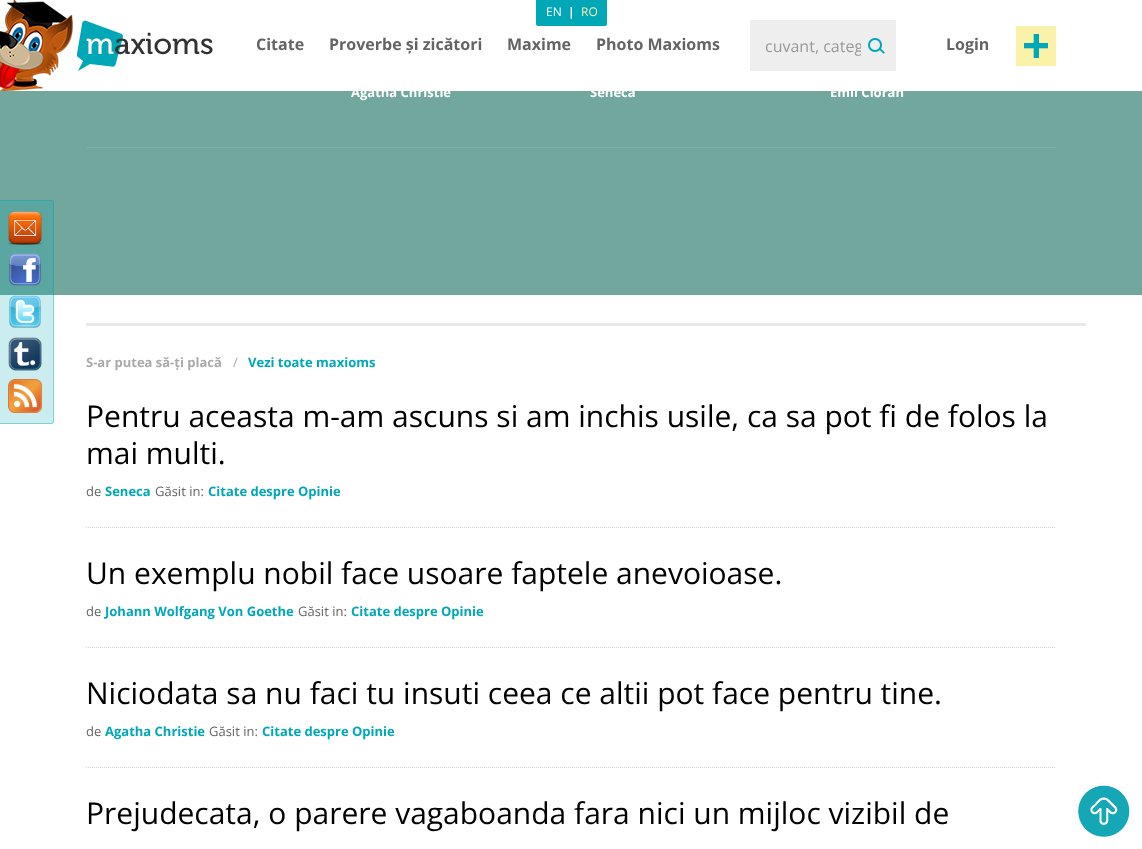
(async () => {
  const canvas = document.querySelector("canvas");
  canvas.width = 1142;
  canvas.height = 849;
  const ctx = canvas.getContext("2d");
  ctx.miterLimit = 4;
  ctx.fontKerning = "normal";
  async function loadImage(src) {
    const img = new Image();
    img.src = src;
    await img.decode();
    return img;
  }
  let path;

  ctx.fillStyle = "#ffffff";
  ctx.fillRect(0, 0, 1142, 849);
  ctx.drawImage(await loadImage("img/1.png"), 0, 0, 73, 91);
  ctx.drawImage(await loadImage("img/2.png"), 76, 20, 137, 51);
  ctx.fillStyle = "#00a7b6";
  ctx.beginPath();
  ctx.roundRect(536, 0, 71, 26, [0, 0, 2, 2]);
  ctx.fill();
  ctx.fillStyle = "#eeeeee";
  ctx.fillRect(750, 20, 146, 51);
  ctx.drawImage(await loadImage("img/3.png"), 868, 38, 17, 16);
  ctx.drawImage(await loadImage("img/4.png"), 1016, 26, 40, 40);
  ctx.fillStyle = "#71a79d";
  ctx.fillRect(0, 91, 1142, 204);
  ctx.fillStyle = "#7cb0a6";
  ctx.fillRect(86, 147, 970, 1);
  ctx.fillStyle = "rgba(0, 167, 182, 0.2)";
  ctx.beginPath();
  ctx.roundRect(0, 200, 54, 224, [0, 3, 3, 0]);
  ctx.fill();
  ctx.fillStyle = "rgba(0, 167, 182, 0.4)";
  path = new Path2D("M0 200H51C53 200 54 201 54 203V421C54 423 53 424 51 424H0ZM0 201H51C52 201 53 202 53 203V421C53 422 52 423 51 423H0Z");
  ctx.fill(path, "evenodd");
  ctx.drawImage(await loadImage("img/5.png"), 8, 211, 34, 34);
  ctx.drawImage(await loadImage("img/6.png"), 9, 253, 32, 33);
  ctx.drawImage(await loadImage("img/7.png"), 9, 295, 32, 33);
  ctx.drawImage(await loadImage("img/8.png"), 8, 337, 34, 34);
  ctx.drawImage(await loadImage("img/9.png"), 8, 379, 34, 34);
  ctx.drawImage(await loadImage("img/10.png"), 1076, 783, 56, 56);
  ctx.fillStyle = "#e9e9e9";
  ctx.fillRect(86, 323, 1000, 3);
  path = new Path2D("M86 527.5H1056");
  ctx.strokeStyle = "#d1d1d1";
  ctx.setLineDash([1, 1]);
  ctx.stroke(path);
  path = new Path2D("M86 647.5H1056");
  ctx.stroke(path);
  path = new Path2D("M86 767.5H1056");
  ctx.stroke(path);
  ctx.font = "12px Open Sans";
  ctx.fillStyle = "#ffffff";
  ctx.fillText("EN", 546, 16);
  ctx.font = "bold 12px Open Sans";
  ctx.fillText("|", 568, 16);
  ctx.font = "12px Open Sans";
  ctx.fillStyle = "#f7f1b5";
  ctx.fillText("RO", 581, 16);
  ctx.font = "bold 16px Open Sans";
  ctx.fillStyle = "#646464";
  for (const [text, x, y] of [
    ["Citate", 256, 50],
    ["Proverbe și zicători", 329, 50],
    ["Maxime", 507, 50],
    ["Photo Maxioms", 596, 50],
  ]) {
    ctx.fillText(text, x, y);
  }
  ctx.save();
  ctx.beginPath();
  ctx.rect(765, 35, 96, 22);
  ctx.clip();
  ctx.font = "16px Open Sans";
  ctx.fillStyle = "#999999";
  ctx.fillText("cuvant, categ", 765, 52);
  ctx.restore();
  ctx.fillText("Login", 946, 50);
  ctx.font = "bold 13px Open Sans";
  ctx.fillStyle = "#ffffff";
  for (const [text, x, y] of [
    ["Agatha Christie", 351, 97],
    ["Seneca", 590, 97],
    ["Emil Cioran", 830, 97],
  ]) {
    ctx.fillText(text, x, y);
  }
  ctx.fillStyle = "#aaaaaa";
  ctx.fillText("S-ar putea să-ți placă", 86, 367);
  ctx.font = "13px Open Sans";
  ctx.fillText("/", 233, 367);
  ctx.font = "bold 13px Open Sans";
  ctx.fillStyle = "#00a7b6";
  ctx.fillText("Vezi toate maxioms", 248, 367);
  ctx.font = "30px Open Sans";
  ctx.fillStyle = "#000000";
  ctx.fillText("Pentru aceasta m-am ascuns si am inchis usile, ca sa pot fi de folos la", 86, 427);
  ctx.fillText("mai multi.", 86, 464);
  ctx.font = "13px Open Sans";
  ctx.fillStyle = "#646464";
  ctx.fillText("de", 86, 496);
  ctx.font = "bold 13px Open Sans";
  ctx.fillStyle = "#00a7b6";
  ctx.fillText("Seneca", 105, 496);
  ctx.font = "13px Open Sans";
  ctx.fillStyle = "#646464";
  ctx.fillText("Găsit in:", 155, 496);
  ctx.font = "bold 13px Open Sans";
  ctx.fillStyle = "#00a7b6";
  ctx.fillText("Citate despre Opinie", 208, 496);
  ctx.font = "30px Open Sans";
  ctx.fillStyle = "#000000";
  ctx.fillText("Un exemplu nobil face usoare faptele anevoioase.", 86, 584);
  ctx.font = "13px Open Sans";
  ctx.fillStyle = "#646464";
  ctx.fillText("de", 86, 616);
  ctx.font = "bold 13px Open Sans";
  ctx.fillStyle = "#00a7b6";
  ctx.fillText("Johann Wolfgang Von Goethe", 105, 616);
  ctx.font = "13px Open Sans";
  ctx.fillStyle = "#646464";
  ctx.fillText("Găsit in:", 298, 616);
  ctx.font = "bold 13px Open Sans";
  ctx.fillStyle = "#00a7b6";
  ctx.fillText("Citate despre Opinie", 351, 616);
  ctx.font = "30px Open Sans";
  ctx.fillStyle = "#000000";
  ctx.fillText("Niciodata sa nu faci tu insuti ceea ce altii pot face pentru tine.", 86, 704);
  ctx.font = "13px Open Sans";
  ctx.fillStyle = "#646464";
  ctx.fillText("de", 86, 736);
  ctx.font = "bold 13px Open Sans";
  ctx.fillStyle = "#00a7b6";
  ctx.fillText("Agatha Christie", 105, 736);
  ctx.font = "13px Open Sans";
  ctx.fillStyle = "#646464";
  ctx.fillText("Găsit in:", 209, 736);
  ctx.font = "bold 13px Open Sans";
  ctx.fillStyle = "#00a7b6";
  ctx.fillText("Citate despre Opinie", 262, 736);
  ctx.font = "30px Open Sans";
  ctx.fillStyle = "#000000";
  ctx.fillText("Prejudecata, o parere vagaboanda fara nici un mijloc vizibil de", 86, 824);
})();
